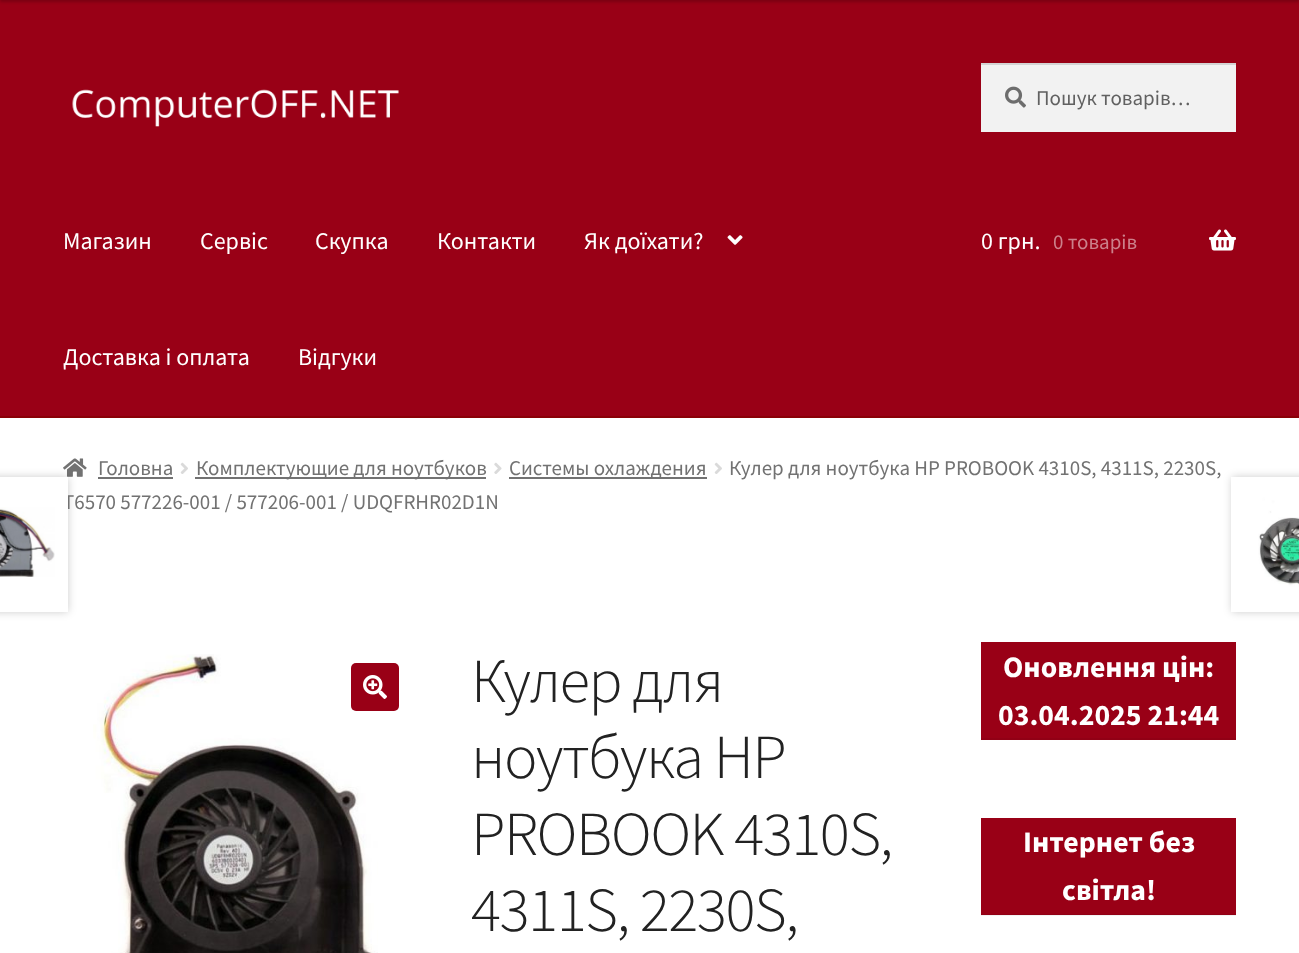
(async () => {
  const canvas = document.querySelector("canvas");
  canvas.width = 1299;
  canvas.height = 953;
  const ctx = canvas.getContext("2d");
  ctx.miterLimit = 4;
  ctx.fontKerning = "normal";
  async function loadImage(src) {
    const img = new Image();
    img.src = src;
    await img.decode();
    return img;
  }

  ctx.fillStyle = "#ffffff";
  ctx.fillRect(0, 0, 1299, 953);
  ctx.fillStyle = "#f2f2f2";
  ctx.fillRect(981, 915, 255, 1);
  ctx.fillStyle = "#990016";
  ctx.fillRect(0, 0, 1299, 416);
  ctx.fillStyle = "rgba(0, 0, 0, 0.2)";
  ctx.filter = "blur(1.5px)";
  ctx.beginPath();
  ctx.rect(0, -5, 1299, 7);
  ctx.fill();
  ctx.filter = "none";
  ctx.fillStyle = "#8a0007";
  ctx.fillRect(0, 416, 1299, 2);
  ctx.drawImage(await loadImage("img/1.png"), 72, 89, 327, 38);
  ctx.fillStyle = "#f2f2f2";
  ctx.fillRect(981, 65, 255, 67);
  ctx.drawImage(await loadImage("img/2.png"), 1005, 86, 21, 22);
  ctx.fillStyle = "#d4d4d4";
  ctx.fillRect(981, 63, 255, 2);
  ctx.drawImage(await loadImage("img/3.png"), 727, 235, 16, 10);
  ctx.drawImage(await loadImage("img/4.png"), 1209, 229, 27, 22);
  ctx.drawImage(await loadImage("img/5.png"), 63, 458, 24, 19);
  ctx.fillStyle = "#727272";
  ctx.fillRect(98, 477, 75, 2);
  ctx.drawImage(await loadImage("img/6.png"), 180, 462, 8, 12);
  ctx.fillRect(195, 477, 291, 2);
  ctx.drawImage(await loadImage("img/7.png"), 494, 462, 8, 12);
  ctx.fillRect(509, 477, 198, 2);
  ctx.drawImage(await loadImage("img/6.png"), 714, 462, 8, 12);
  ctx.fillStyle = "rgba(0, 0, 0, 0.2)";
  ctx.filter = "blur(4px)";
  ctx.beginPath();
  ctx.rect(-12, 477, 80, 135);
  ctx.fill();
  ctx.filter = "none";
  ctx.filter = "blur(4px)";
  ctx.beginPath();
  ctx.rect(1232, 477, 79, 135);
  ctx.fill();
  ctx.filter = "none";
  ctx.drawImage(await loadImage("img/9.png"), 1231, 477, 68, 135);
  ctx.drawImage(await loadImage("img/10.png"), 93, 654, 285, 299);
  ctx.fillStyle = "#990016";
  ctx.beginPath();
  ctx.roundRect(351, 663, 48, 48, 5);
  ctx.fill();
  ctx.drawImage(await loadImage("img/11.png"), 363, 675, 24, 24);
  for (const [x, y, w, h, color] of [
    [981, 642, 255, 96, "#990016"],
    [981, 738, 255, 2, "#910015"],
    [981, 818, 255, 96, "#990016"],
    [981, 914, 255, 1, "#910015"],
  ]) {
    ctx.fillStyle = color;
    ctx.fillRect(x, y, w, h);
  }
  ctx.font = "21px Source Sans Pro";
  ctx.fillStyle = "#616161";
  ctx.fillText("Пошук товарів…", 1036, 105);
  ctx.font = "24px Source Sans Pro";
  ctx.fillStyle = "#ffffff";
  for (const [text, x, y] of [
    ["Магазин", 63, 249],
    ["Сервіс", 200, 249],
    ["Скупка", 315, 249],
    ["Контакти", 437, 249],
    ["Як доїхати?", 584, 249],
    ["Доставка і оплата", 63, 365],
    ["Відгуки", 298, 365],
    ["0 грн.", 981, 249],
  ]) {
    ctx.fillText(text, x, y);
  }
  ctx.font = "21px Source Sans Pro";
  ctx.fillStyle = "#cc808b";
  ctx.fillText("0 товарів", 1053, 249);
  ctx.fillStyle = "#727272";
  for (const [text, x, y] of [
    ["Головна", 98, 475],
    ["Комплектующие для ноутбуков", 196, 475],
    ["Системы охлаждения", 509, 475],
    ["Кулер для ноутбука HP PROBOOK 4310S, 4311S, 2230S,", 729, 475],
    ["T6570 577226-001 / 577206-001 / UDQFRHR02D1N", 63, 509],
  ]) {
    ctx.fillText(text, x, y);
  }
  ctx.fillStyle = "#ffffff";
  ctx.fillRect(0, 477, 68, 135);
  ctx.drawImage(await loadImage("img/8.png"), 0, 507, 55, 70);
  ctx.letterSpacing = "-1.5px";
  ctx.font = "300 62.75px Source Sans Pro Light";
  ctx.fillStyle = "#222222";
  for (const [text, x, y] of [
    ["Кулер для", 471, 702],
    ["ноутбука HP", 471, 778],
    ["PROBOOK 4310S,", 471, 855],
    ["4311S, 2230S,", 471, 931],
  ]) {
    ctx.fillText(text, x, y);
  }
  ctx.letterSpacing = "0px";
  ctx.font = "bold 29.75px Source Sans Pro";
  ctx.fillStyle = "#ffffff";
  for (const [text, x, y] of [
    ["Оновлення цін:", 1003, 677],
    ["03.04.2025 21:44", 998, 725],
    ["Інтернет без", 1023, 852],
    ["світла!", 1062, 900],
  ]) {
    ctx.fillText(text, x, y);
  }
})();
